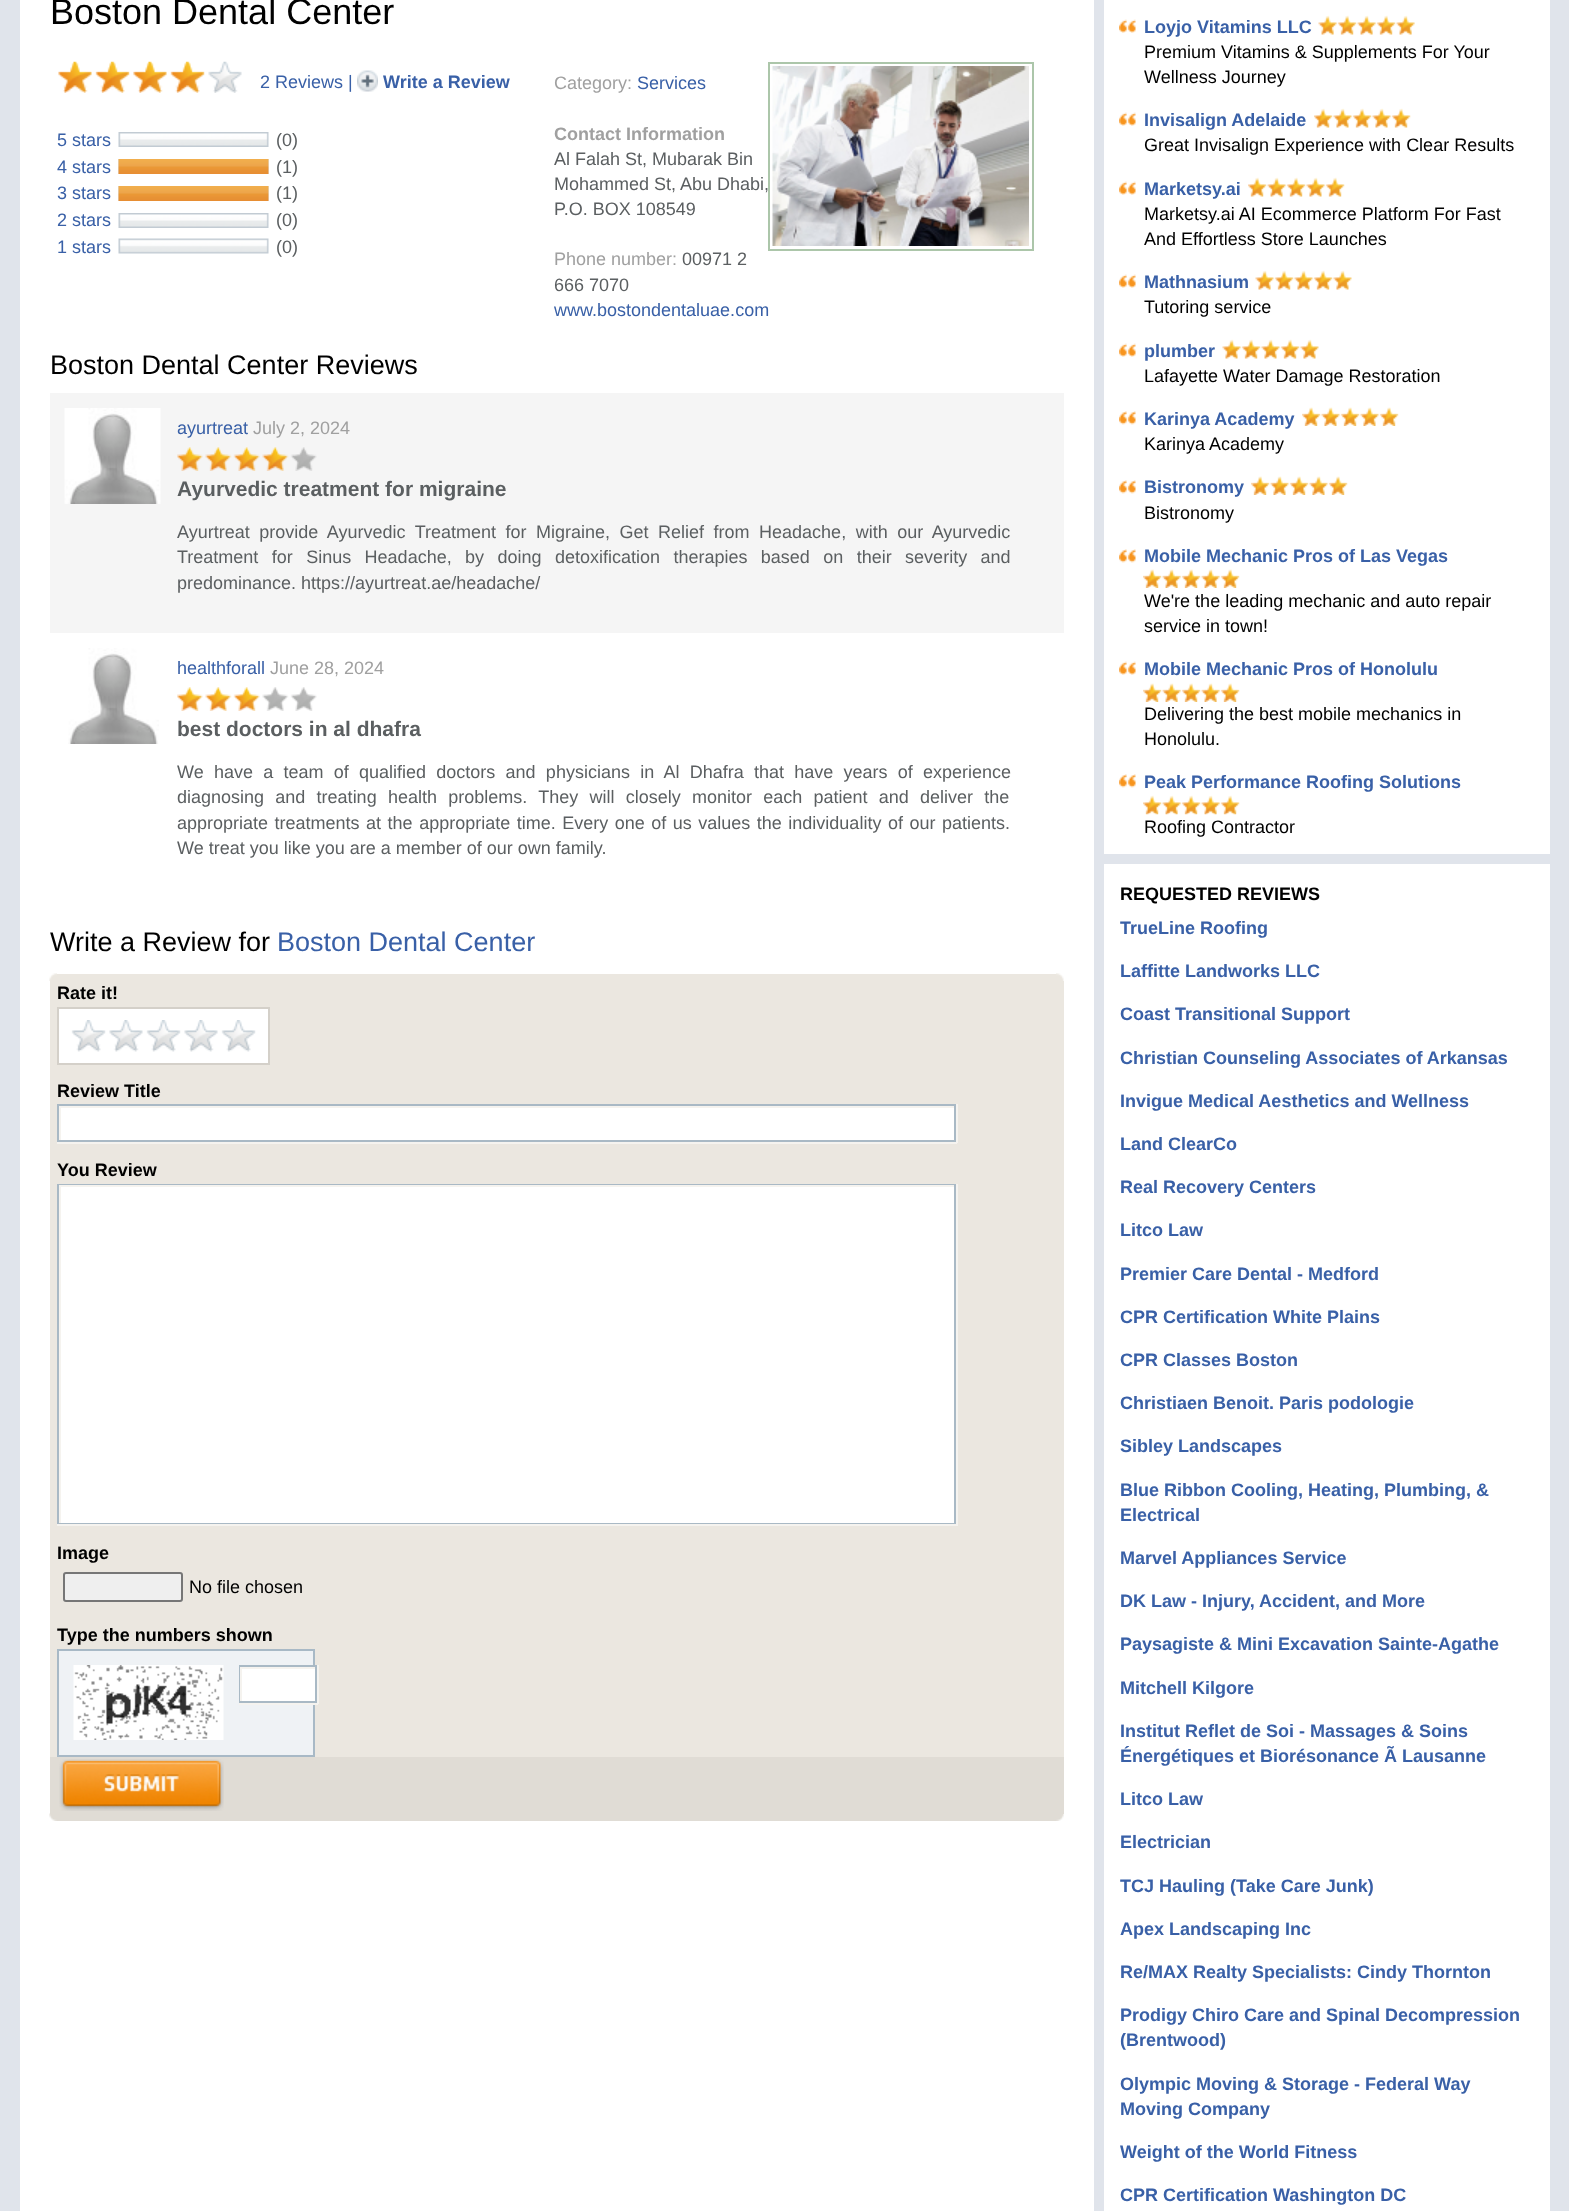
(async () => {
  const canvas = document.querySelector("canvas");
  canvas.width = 1569;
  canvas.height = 2211;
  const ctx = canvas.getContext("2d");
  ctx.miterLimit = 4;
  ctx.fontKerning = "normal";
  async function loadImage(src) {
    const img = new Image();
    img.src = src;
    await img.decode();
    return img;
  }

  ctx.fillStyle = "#e0e4eb";
  ctx.fillRect(0, 0, 1569, 2211);
  ctx.fillStyle = "#ffffff";
  ctx.fillRect(20, 0, 1530, 2211);
  ctx.fillStyle = "#e0e4eb";
  ctx.fillRect(1094, 0, 10, 2211);
  ctx.drawImage(await loadImage("img/1.png"), 58, 61, 184, 32);
  ctx.drawImage(await loadImage("img/2.png"), 357, 70, 21, 22);
  ctx.drawImage(await loadImage("img/3.png"), 118, 132, 151, 15);
  ctx.drawImage(await loadImage("img/3.png"), 118, 159, 151, 15);
  ctx.drawImage(await loadImage("img/4.png"), 118, 159, 151, 15);
  ctx.drawImage(await loadImage("img/3.png"), 118, 186, 151, 15);
  ctx.drawImage(await loadImage("img/4.png"), 118, 186, 151, 15);
  ctx.drawImage(await loadImage("img/3.png"), 118, 213, 151, 15);
  ctx.drawImage(await loadImage("img/5.png"), 118, 238, 151, 16);
  ctx.strokeStyle = "#acc6aa";
  ctx.lineWidth = 2;
  ctx.strokeRect(769, 63, 264, 187);
  ctx.drawImage(await loadImage("img/6.png"), 772, 66, 257, 180);
  ctx.fillStyle = "#f5f5f5";
  ctx.fillRect(50, 393, 1014, 240);
  ctx.drawImage(await loadImage("img/7.png"), 64, 408, 97, 96);
  ctx.drawImage(await loadImage("img/8.png"), 177, 447, 140, 24);
  ctx.drawImage(await loadImage("img/9.png"), 68, 648, 91, 96);
  ctx.drawImage(await loadImage("img/10.png"), 177, 687, 140, 24);
  ctx.drawImage(await loadImage("img/11.png"), 49, 973, 8, 8);
  ctx.fillStyle = "#ebe7e0";
  ctx.fillRect(57, 974, 999, 7);
  ctx.drawImage(await loadImage("img/12.png"), 1056, 973, 8, 8);
  ctx.fillRect(50, 981, 1014, 776);
  ctx.fillStyle = "#ffffff";
  ctx.beginPath();
  ctx.rect(58, 1008, 211, 56);
  ctx.fill();
  ctx.strokeStyle = "#d4d0c9";
  ctx.stroke();
  ctx.drawImage(await loadImage("img/13.png"), 71, 1020, 185, 32);
  ctx.fillStyle = "#f5f3ef";
  ctx.fillRect(956, 1104, 2, 39);
  ctx.fillRect(57, 1142, 900, 2);
  ctx.strokeStyle = "#a9b9c5";
  ctx.strokeRect(58, 1105, 897, 36);
  for (const [x, y, w, h, color] of [
    [61, 1108, 893, 32, "#ffffff"],
    [59, 1106, 895, 2, "#f5f3ef"],
    [59, 1106, 2, 34, "#f5f3ef"],
    [956, 1184, 2, 342, "#f5f3ef"],
    [57, 1524, 900, 2, "#f5f3ef"],
  ]) {
    ctx.fillStyle = color;
    ctx.fillRect(x, y, w, h);
  }
  ctx.strokeRect(58, 1185, 897, 338);
  for (const [x, y, w, h, color] of [
    [61, 1187, 893, 336, "#ffffff"],
    [59, 1185, 895, 2, "#f5f3ef"],
    [59, 1185, 2, 338, "#f5f3ef"],
  ]) {
    ctx.fillStyle = color;
    ctx.fillRect(x, y, w, h);
  }
  ctx.fillStyle = "#efefef";
  ctx.beginPath();
  ctx.roundRect(64, 1573, 118, 28, 2);
  ctx.fill();
  ctx.strokeStyle = "#767676";
  ctx.stroke();
  ctx.fillStyle = "#eff2f5";
  ctx.beginPath();
  ctx.rect(58, 1650, 256, 106);
  ctx.fill();
  ctx.strokeStyle = "#a8b9c6";
  ctx.stroke();
  ctx.drawImage(await loadImage("img/14.png"), 73, 1665, 151, 75);
  ctx.fillStyle = "#f5f3ef";
  ctx.fillRect(317, 1665, 2, 39);
  ctx.fillRect(239, 1703, 79, 2);
  ctx.strokeStyle = "#a9b9c5";
  ctx.strokeRect(240, 1666, 76, 36);
  for (const [x, y, w, h, color] of [
    [242, 1669, 73, 32, "#ffffff"],
    [240, 1667, 75, 2, "#f5f3ef"],
    [240, 1667, 2, 34, "#f5f3ef"],
    [50, 1757, 1014, 57, "#e0dcd5"],
  ]) {
    ctx.fillStyle = color;
    ctx.fillRect(x, y, w, h);
  }
  ctx.drawImage(await loadImage("img/15.png"), 59, 1759, 165, 52);
  ctx.drawImage(await loadImage("img/16.png"), 49, 1813, 8, 8);
  ctx.fillRect(57, 1814, 999, 7);
  ctx.drawImage(await loadImage("img/17.png"), 1056, 1814, 8, 7);
  ctx.drawImage(await loadImage("img/18.png"), 1119, 19, 17, 14);
  ctx.drawImage(await loadImage("img/19.png"), 1318, 15, 97, 20);
  ctx.drawImage(await loadImage("img/18.png"), 1119, 112, 17, 14);
  ctx.drawImage(await loadImage("img/20.png"), 1314, 108, 97, 20);
  ctx.drawImage(await loadImage("img/18.png"), 1119, 181, 17, 14);
  ctx.drawImage(await loadImage("img/21.png"), 1248, 177, 97, 20);
  ctx.drawImage(await loadImage("img/18.png"), 1119, 274, 17, 14);
  ctx.drawImage(await loadImage("img/22.png"), 1255, 270, 97, 20);
  ctx.drawImage(await loadImage("img/18.png"), 1119, 343, 17, 14);
  ctx.drawImage(await loadImage("img/22.png"), 1222, 339, 97, 20);
  ctx.drawImage(await loadImage("img/23.png"), 1119, 411, 17, 14);
  ctx.drawImage(await loadImage("img/24.png"), 1302, 407, 97, 19);
  ctx.drawImage(await loadImage("img/23.png"), 1119, 480, 17, 14);
  ctx.drawImage(await loadImage("img/25.png"), 1251, 476, 97, 19);
  ctx.drawImage(await loadImage("img/23.png"), 1119, 549, 17, 14);
  ctx.drawImage(await loadImage("img/26.png"), 1143, 569, 97, 19);
  ctx.drawImage(await loadImage("img/18.png"), 1119, 661, 17, 14);
  ctx.drawImage(await loadImage("img/26.png"), 1143, 683, 97, 19);
  ctx.drawImage(await loadImage("img/23.png"), 1119, 774, 17, 14);
  ctx.drawImage(await loadImage("img/27.png"), 1143, 795, 97, 20);
  ctx.fillStyle = "#e0e4eb";
  ctx.fillRect(1104, 854, 446, 10);
  ctx.font = "36px Liberation Sans";
  ctx.fillStyle = "#000000";
  ctx.fillText("Boston Dental Center", 50, 24);
  ctx.font = "18px Liberation Sans";
  ctx.fillStyle = "#3960a7";
  ctx.fillText("2 Reviews |", 260, 88);
  ctx.font = "bold 18px Liberation Sans";
  ctx.fillText("Write a Review", 383, 88);
  ctx.font = "18px Liberation Sans";
  ctx.fillText("5 stars", 57, 146);
  ctx.fillStyle = "#5b5f61";
  ctx.fillText("(0)", 276, 146);
  ctx.fillStyle = "#3960a7";
  ctx.fillText("4 stars", 57, 173);
  ctx.fillStyle = "#5b5f61";
  ctx.fillText("(1)", 276, 173);
  ctx.fillStyle = "#3960a7";
  ctx.fillText("3 stars", 57, 199);
  ctx.fillStyle = "#5b5f61";
  ctx.fillText("(1)", 276, 199);
  ctx.fillStyle = "#3960a7";
  ctx.fillText("2 stars", 57, 226);
  ctx.fillStyle = "#5b5f61";
  ctx.fillText("(0)", 276, 226);
  ctx.fillStyle = "#3960a7";
  ctx.fillText("1 stars", 57, 253);
  ctx.fillStyle = "#5b5f61";
  ctx.fillText("(0)", 276, 253);
  ctx.fillStyle = "#a0a0a0";
  ctx.fillText("Category:", 554, 89);
  ctx.fillStyle = "#3960a7";
  ctx.fillText("Services", 637, 89);
  ctx.font = "bold 18px Liberation Sans";
  ctx.fillStyle = "#a0a0a0";
  ctx.fillText("Contact Information", 554, 140);
  ctx.font = "18px Liberation Sans";
  ctx.fillStyle = "#5b5f61";
  for (const [text, x, y] of [
    ["Al Falah St, Mubarak Bin", 554, 165],
    ["Mohammed St, Abu Dhabi,", 554, 190],
    ["P.O. BOX 108549", 554, 215],
  ]) {
    ctx.fillText(text, x, y);
  }
  ctx.fillStyle = "#a0a0a0";
  ctx.fillText("Phone number:", 554, 265);
  ctx.fillStyle = "#5b5f61";
  ctx.fillText("00971 2", 682, 265);
  ctx.fillText("666 7070", 554, 291);
  ctx.fillStyle = "#3960a7";
  ctx.fillText("www.bostondentaluae.com", 554, 316);
  ctx.font = "27px Liberation Sans";
  ctx.fillStyle = "#000000";
  ctx.fillText("Boston Dental Center Reviews", 50, 374);
  ctx.font = "18px Liberation Sans";
  ctx.fillStyle = "#3960a7";
  ctx.fillText("ayurtreat", 177, 434);
  ctx.fillStyle = "#a0a0a0";
  ctx.fillText("July 2, 2024", 253, 434);
  ctx.font = "bold 21px Liberation Sans";
  ctx.fillStyle = "#5b5f61";
  ctx.fillText("Ayurvedic treatment for migraine", 177, 496);
  ctx.wordSpacing = "4.5px";
  ctx.font = "18px Liberation Sans";
  ctx.fillText("Ayurtreat provide Ayurvedic Treatment for Migraine, Get Relief from Headache, with our Ayurvedic", 177, 538);
  ctx.wordSpacing = "8.4px";
  ctx.fillText("Treatment for Sinus Headache, by doing detoxification therapies based on their severity and", 177, 563);
  ctx.wordSpacing = "0px";
  ctx.fillText("predominance. https://ayurtreat.ae/headache/", 177, 589);
  ctx.fillStyle = "#3960a7";
  ctx.fillText("healthforall", 177, 674);
  ctx.fillStyle = "#a0a0a0";
  ctx.fillText("June 28, 2024", 270, 674);
  ctx.font = "bold 21px Liberation Sans";
  ctx.fillStyle = "#5b5f61";
  ctx.fillText("best doctors in al dhafra", 177, 736);
  ctx.wordSpacing = "5.25px";
  ctx.font = "18px Liberation Sans";
  ctx.fillText("We have a team of qualified doctors and physicians in Al Dhafra that have years of experience", 177, 778);
  ctx.wordSpacing = "6.25px";
  ctx.fillText("diagnosing and treating health problems. They will closely monitor each patient and deliver the", 177, 803);
  ctx.wordSpacing = "1.5px";
  ctx.fillText("appropriate treatments at the appropriate time. Every one of us values the individuality of our patients.", 177, 829);
  ctx.wordSpacing = "0px";
  ctx.fillText("We treat you like you are a member of our own family.", 177, 854);
  ctx.font = "27px Liberation Sans";
  ctx.fillStyle = "#000000";
  ctx.fillText("Write a Review for", 50, 951);
  ctx.fillStyle = "#3960a7";
  ctx.fillText("Boston Dental Center", 277, 951);
  ctx.font = "bold 18px Liberation Sans";
  ctx.fillStyle = "#000000";
  for (const [text, x, y] of [
    ["Rate it!", 57, 999],
    ["Review Title", 57, 1097],
    ["You Review", 57, 1176],
    ["Image", 57, 1559],
  ]) {
    ctx.fillText(text, x, y);
  }
  ctx.font = "18px Liberation Sans";
  ctx.fillText("No file chosen", 189, 1593);
  ctx.font = "bold 18px Liberation Sans";
  ctx.fillText("Type the numbers shown", 57, 1641);
  ctx.fillStyle = "#3960a7";
  ctx.fillText("Loyjo Vitamins LLC", 1144, 33);
  ctx.font = "18px Liberation Sans";
  ctx.fillStyle = "#000000";
  ctx.fillText("Premium Vitamins & Supplements For Your", 1144, 58);
  ctx.fillText("Wellness Journey", 1144, 83);
  ctx.font = "bold 18px Liberation Sans";
  ctx.fillStyle = "#3960a7";
  ctx.fillText("Invisalign Adelaide", 1144, 126);
  ctx.font = "18px Liberation Sans";
  ctx.fillStyle = "#000000";
  ctx.fillText("Great Invisalign Experience with Clear Results", 1144, 151);
  ctx.font = "bold 18px Liberation Sans";
  ctx.fillStyle = "#3960a7";
  ctx.fillText("Marketsy.ai", 1144, 195);
  ctx.font = "18px Liberation Sans";
  ctx.fillStyle = "#000000";
  ctx.fillText("Marketsy.ai AI Ecommerce Platform For Fast", 1144, 220);
  ctx.fillText("And Effortless Store Launches", 1144, 245);
  ctx.font = "bold 18px Liberation Sans";
  ctx.fillStyle = "#3960a7";
  ctx.fillText("Mathnasium", 1144, 288);
  ctx.font = "18px Liberation Sans";
  ctx.fillStyle = "#000000";
  ctx.fillText("Tutoring service", 1144, 313);
  ctx.font = "bold 18px Liberation Sans";
  ctx.fillStyle = "#3960a7";
  ctx.fillText("plumber", 1144, 357);
  ctx.font = "18px Liberation Sans";
  ctx.fillStyle = "#000000";
  ctx.fillText("Lafayette Water Damage Restoration", 1144, 382);
  ctx.font = "bold 18px Liberation Sans";
  ctx.fillStyle = "#3960a7";
  ctx.fillText("Karinya Academy", 1144, 425);
  ctx.font = "18px Liberation Sans";
  ctx.fillStyle = "#000000";
  ctx.fillText("Karinya Academy", 1144, 450);
  ctx.font = "bold 18px Liberation Sans";
  ctx.fillStyle = "#3960a7";
  ctx.fillText("Bistronomy", 1144, 493);
  ctx.font = "18px Liberation Sans";
  ctx.fillStyle = "#000000";
  ctx.fillText("Bistronomy", 1144, 519);
  ctx.font = "bold 18px Liberation Sans";
  ctx.fillStyle = "#3960a7";
  ctx.fillText("Mobile Mechanic Pros of Las Vegas", 1144, 562);
  ctx.font = "18px Liberation Sans";
  ctx.fillStyle = "#000000";
  ctx.fillText("We're the leading mechanic and auto repair", 1144, 607);
  ctx.fillText("service in town!", 1144, 632);
  ctx.font = "bold 18px Liberation Sans";
  ctx.fillStyle = "#3960a7";
  ctx.fillText("Mobile Mechanic Pros of Honolulu", 1144, 675);
  ctx.font = "18px Liberation Sans";
  ctx.fillStyle = "#000000";
  ctx.fillText("Delivering the best mobile mechanics in", 1144, 720);
  ctx.fillText("Honolulu.", 1144, 745);
  ctx.font = "bold 18px Liberation Sans";
  ctx.fillStyle = "#3960a7";
  ctx.fillText("Peak Performance Roofing Solutions", 1144, 788);
  ctx.font = "18px Liberation Sans";
  ctx.fillStyle = "#000000";
  ctx.fillText("Roofing Contractor", 1144, 833);
  ctx.font = "bold 18px Liberation Sans";
  ctx.fillText("REQUESTED REVIEWS", 1120, 900);
  ctx.fillStyle = "#3960a7";
  for (const [text, x, y] of [
    ["TrueLine Roofing", 1120, 934],
    ["Laffitte Landworks LLC", 1120, 977],
    ["Coast Transitional Support", 1120, 1020],
    ["Christian Counseling Associates of Arkansas", 1120, 1064],
    ["Invigue Medical Aesthetics and Wellness", 1120, 1107],
    ["Land ClearCo", 1120, 1150],
    ["Real Recovery Centers", 1120, 1193],
    ["Litco Law", 1120, 1236],
    ["Premier Care Dental - Medford", 1120, 1280],
    ["CPR Certification White Plains", 1120, 1323],
    ["CPR Classes Boston", 1120, 1366],
    ["Christiaen Benoit. Paris podologie", 1120, 1409],
    ["Sibley Landscapes", 1120, 1452],
    ["Blue Ribbon Cooling, Heating, Plumbing, &", 1120, 1496],
    ["Electrical", 1120, 1521],
    ["Marvel Appliances Service", 1120, 1564],
    ["DK Law - Injury, Accident, and More", 1120, 1607],
    ["Paysagiste & Mini Excavation Sainte-Agathe", 1120, 1650],
    ["Mitchell Kilgore", 1120, 1694],
    ["Institut Reflet de Soi - Massages & Soins", 1120, 1737],
    ["Énergétiques et Biorésonance Ã Lausanne", 1120, 1762],
    ["Litco Law", 1120, 1805],
    ["Electrician", 1120, 1848],
    ["TCJ Hauling (Take Care Junk)", 1120, 1892],
    ["Apex Landscaping Inc", 1120, 1935],
    ["Re/MAX Realty Specialists: Cindy Thornton", 1120, 1978],
    ["Prodigy Chiro Care and Spinal Decompression", 1120, 2021],
    ["(Brentwood)", 1120, 2046],
    ["Olympic Moving & Storage - Federal Way", 1120, 2090],
    ["Moving Company", 1120, 2115],
    ["Weight of the World Fitness", 1120, 2158],
    ["CPR Certification Washington DC", 1120, 2201],
  ]) {
    ctx.fillText(text, x, y);
  }
})();
